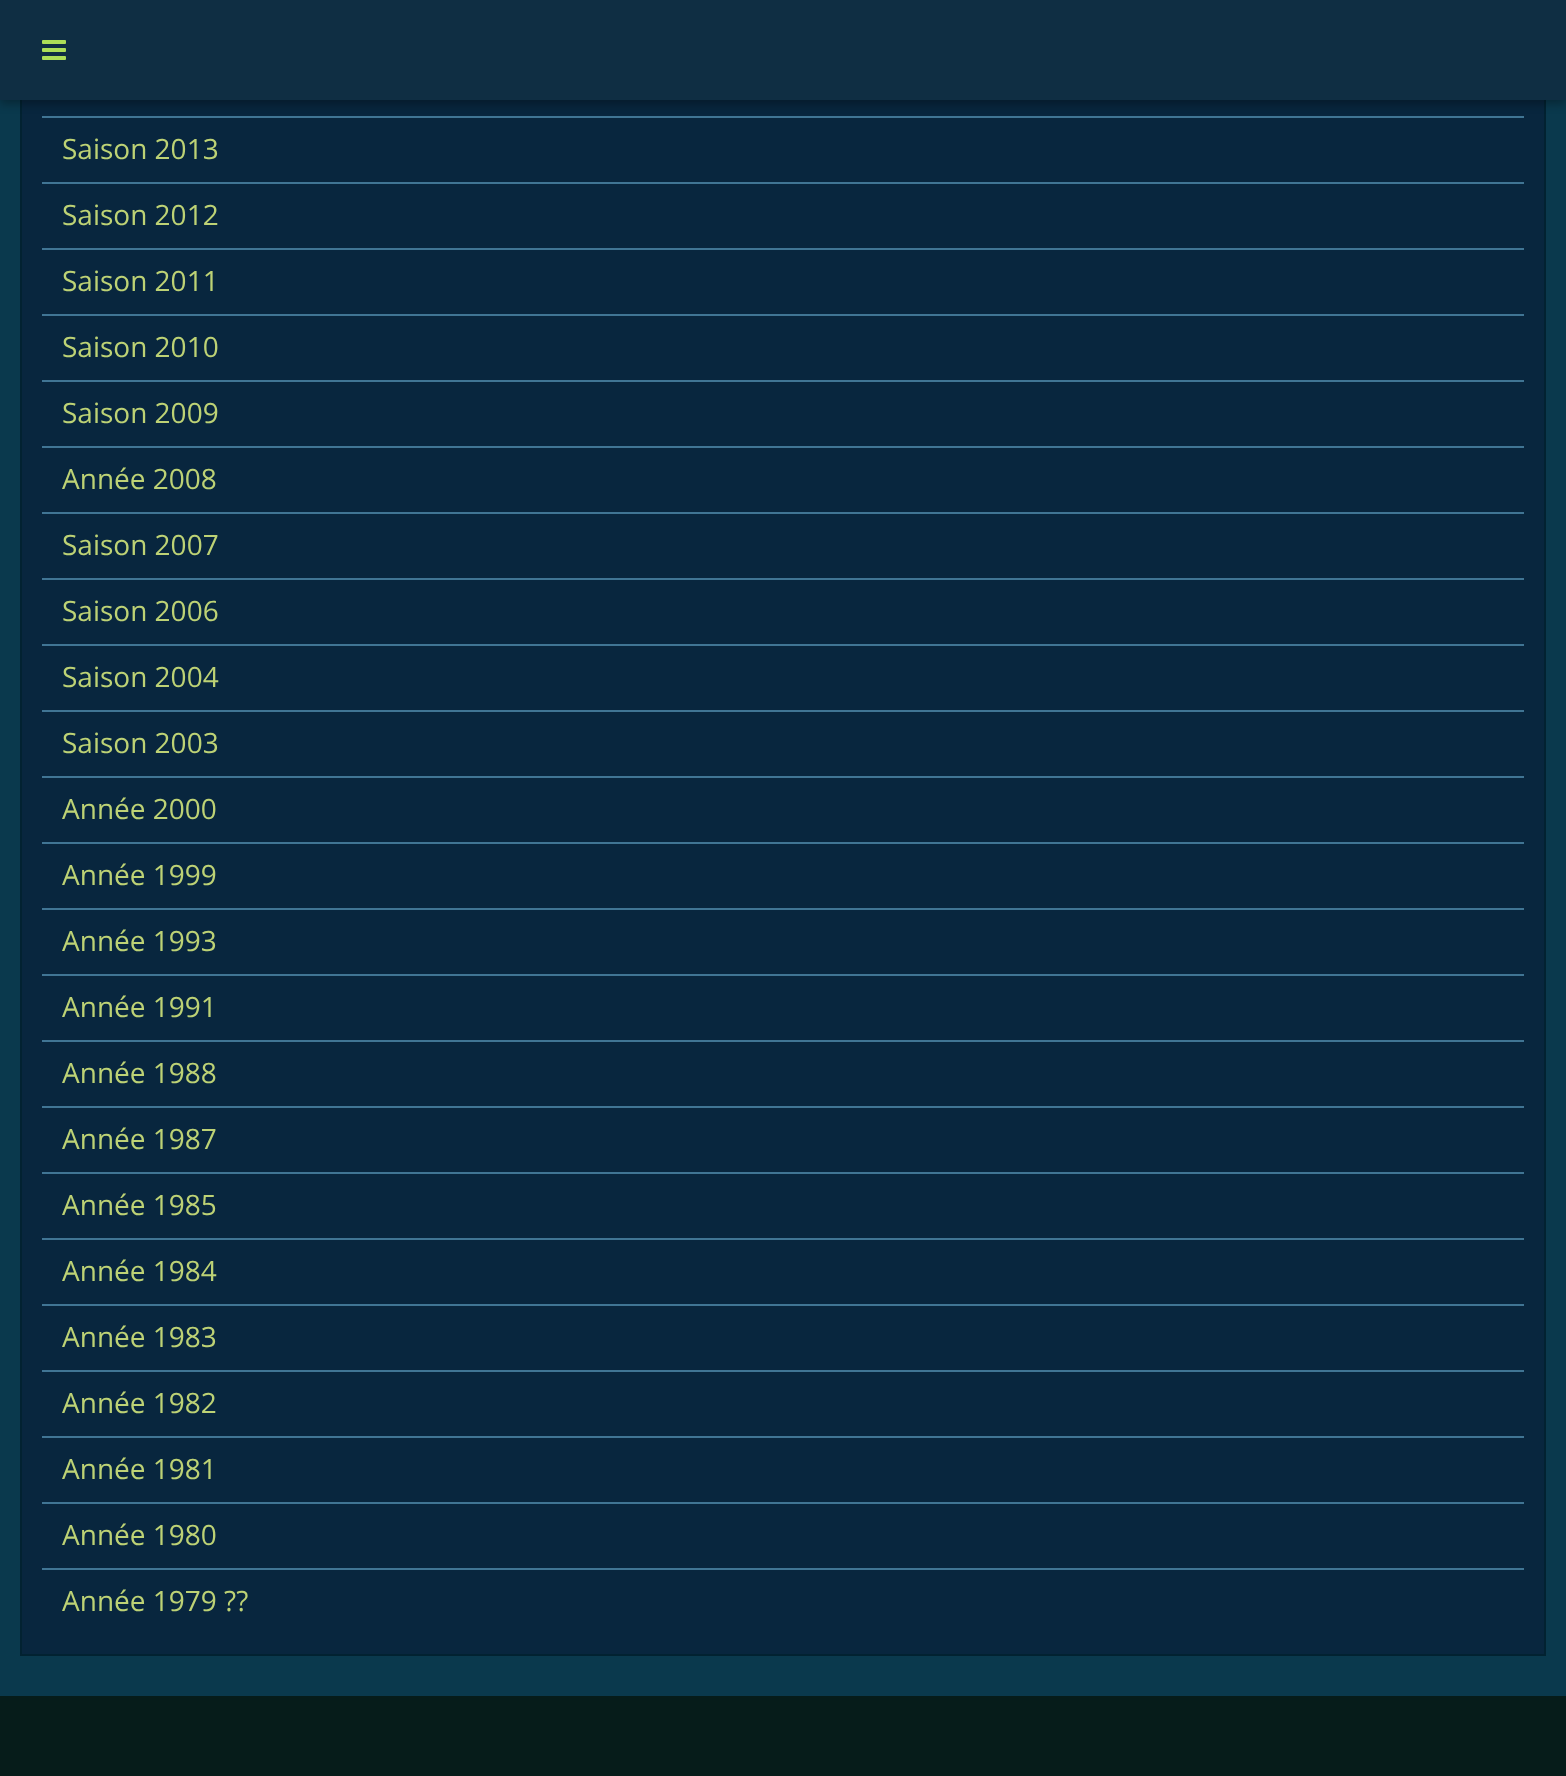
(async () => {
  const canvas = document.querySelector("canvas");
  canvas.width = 1566;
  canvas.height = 1776;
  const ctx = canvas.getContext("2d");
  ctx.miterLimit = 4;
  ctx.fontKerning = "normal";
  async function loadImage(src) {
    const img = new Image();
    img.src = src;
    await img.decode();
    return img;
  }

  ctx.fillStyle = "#061c1a";
  ctx.fillRect(0, 0, 1566, 1776);
  ctx.fillStyle = "#0a394d";
  ctx.fillRect(0, 100, 1566, 1596);
  ctx.fillStyle = "#08263e";
  ctx.fillRect(22, 100, 1522, 1554);
  ctx.strokeStyle = "#022231";
  ctx.lineWidth = 2;
  ctx.strokeRect(21, -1, 1524, 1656);
  ctx.fillStyle = "#407594";
  ctx.fillRect(42, 116, 1482, 2);
  ctx.fillStyle = "rgba(0, 0, 0, 0.3)";
  ctx.filter = "blur(5px)";
  ctx.beginPath();
  ctx.rect(0, 4, 1566, 100);
  ctx.fill();
  ctx.filter = "none";
  ctx.fillStyle = "#0f2e43";
  ctx.fillRect(0, 0, 1566, 100);
  ctx.drawImage(await loadImage("img/1.png"), 42, 40, 24, 20);
  for (const [x, y, w, h, color] of [
    [42, 182, 1482, 2, "#407594"],
    [42, 248, 1482, 2, "#407594"],
    [42, 314, 1482, 2, "#407594"],
    [42, 380, 1482, 2, "#407594"],
    [42, 446, 1482, 2, "#407594"],
    [42, 512, 1482, 2, "#407594"],
    [42, 578, 1482, 2, "#407594"],
    [42, 644, 1482, 2, "#407594"],
    [42, 710, 1482, 2, "#407594"],
    [42, 776, 1482, 2, "#407594"],
    [42, 842, 1482, 2, "#407594"],
    [42, 908, 1482, 2, "#407594"],
    [42, 974, 1482, 2, "#407594"],
    [42, 1040, 1482, 2, "#407594"],
    [42, 1106, 1482, 2, "#407594"],
    [42, 1172, 1482, 2, "#407594"],
    [42, 1238, 1482, 2, "#407594"],
    [42, 1304, 1482, 2, "#407594"],
    [42, 1370, 1482, 2, "#407594"],
    [42, 1436, 1482, 2, "#407594"],
    [42, 1502, 1482, 2, "#407594"],
    [42, 1568, 1482, 2, "#407594"],
  ]) {
    ctx.fillStyle = color;
    ctx.fillRect(x, y, w, h);
  }
  ctx.font = "28px Open Sans";
  ctx.fillStyle = "#bdd275";
  for (const [text, x, y] of [
    ["Saison 2013", 62, 159],
    ["Saison 2012", 62, 225],
    ["Saison 2011", 62, 291],
    ["Saison 2010", 62, 357],
    ["Saison 2009", 62, 423],
    ["Année 2008", 62, 489],
    ["Saison 2007", 62, 555],
    ["Saison 2006", 62, 621],
    ["Saison 2004", 62, 687],
    ["Saison 2003", 62, 753],
    ["Année 2000", 62, 819],
    ["Année 1999", 62, 885],
    ["Année 1993", 62, 951],
    ["Année 1991", 62, 1017],
    ["Année 1988", 62, 1083],
    ["Année 1987", 62, 1149],
    ["Année 1985", 62, 1215],
    ["Année 1984", 62, 1281],
    ["Année 1983", 62, 1347],
    ["Année 1982", 62, 1413],
    ["Année 1981", 62, 1479],
    ["Année 1980", 62, 1545],
    ["Année 1979 ??", 62, 1611],
  ]) {
    ctx.fillText(text, x, y);
  }
})();
